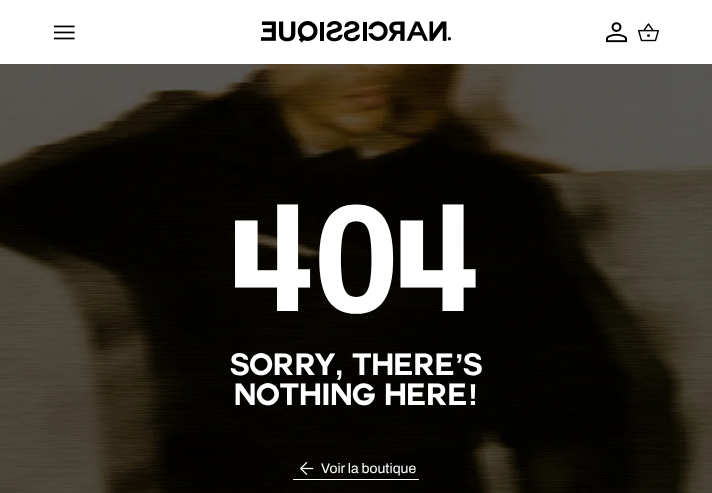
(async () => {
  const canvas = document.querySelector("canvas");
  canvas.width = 712;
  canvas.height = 493;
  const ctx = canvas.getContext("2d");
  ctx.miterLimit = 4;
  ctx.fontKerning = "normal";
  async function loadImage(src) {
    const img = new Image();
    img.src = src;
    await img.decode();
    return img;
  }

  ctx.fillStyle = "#ffffff";
  ctx.fillRect(0, 0, 712, 493);
  ctx.drawImage(await loadImage("img/1.png"), 54, 25, 21, 15);
  ctx.drawImage(await loadImage("img/2.png"), 261, 21, 190, 22);
  ctx.drawImage(await loadImage("img/3.png"), 606, 22, 21, 21);
  ctx.drawImage(await loadImage("img/4.png"), 638, 23, 21, 19);
  ctx.drawImage(await loadImage("img/5.png"), 0, 64, 712, 429);
  ctx.fillRect(293, 479, 126, 1);
  ctx.drawImage(await loadImage("img/6.png"), 299, 461, 15, 15);
  ctx.font = "bold 150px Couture";
  ctx.fillText("404", 231, 311);
  ctx.font = "bold 30px Couture";
  ctx.fillText("SORRY", 230, 375);
  ctx.fillText("THERE", 352, 375);
  ctx.font = "bold 30px Liberation Sans";
  ctx.fillText("’", 455, 375);
  ctx.font = "bold 30px Couture";
  ctx.fillText("S", 463, 375);
  ctx.font = "bold 30px Liberation Sans";
  ctx.fillText(",", 335, 375);
  ctx.font = "bold 30px Couture";
  ctx.fillText("NOTHING HERE", 234, 405);
  ctx.font = "bold 30px Liberation Sans";
  ctx.fillText("!", 468, 405);
  ctx.font = "14px Archivo";
  ctx.fillText("Voir la boutique", 321, 473);
})();
